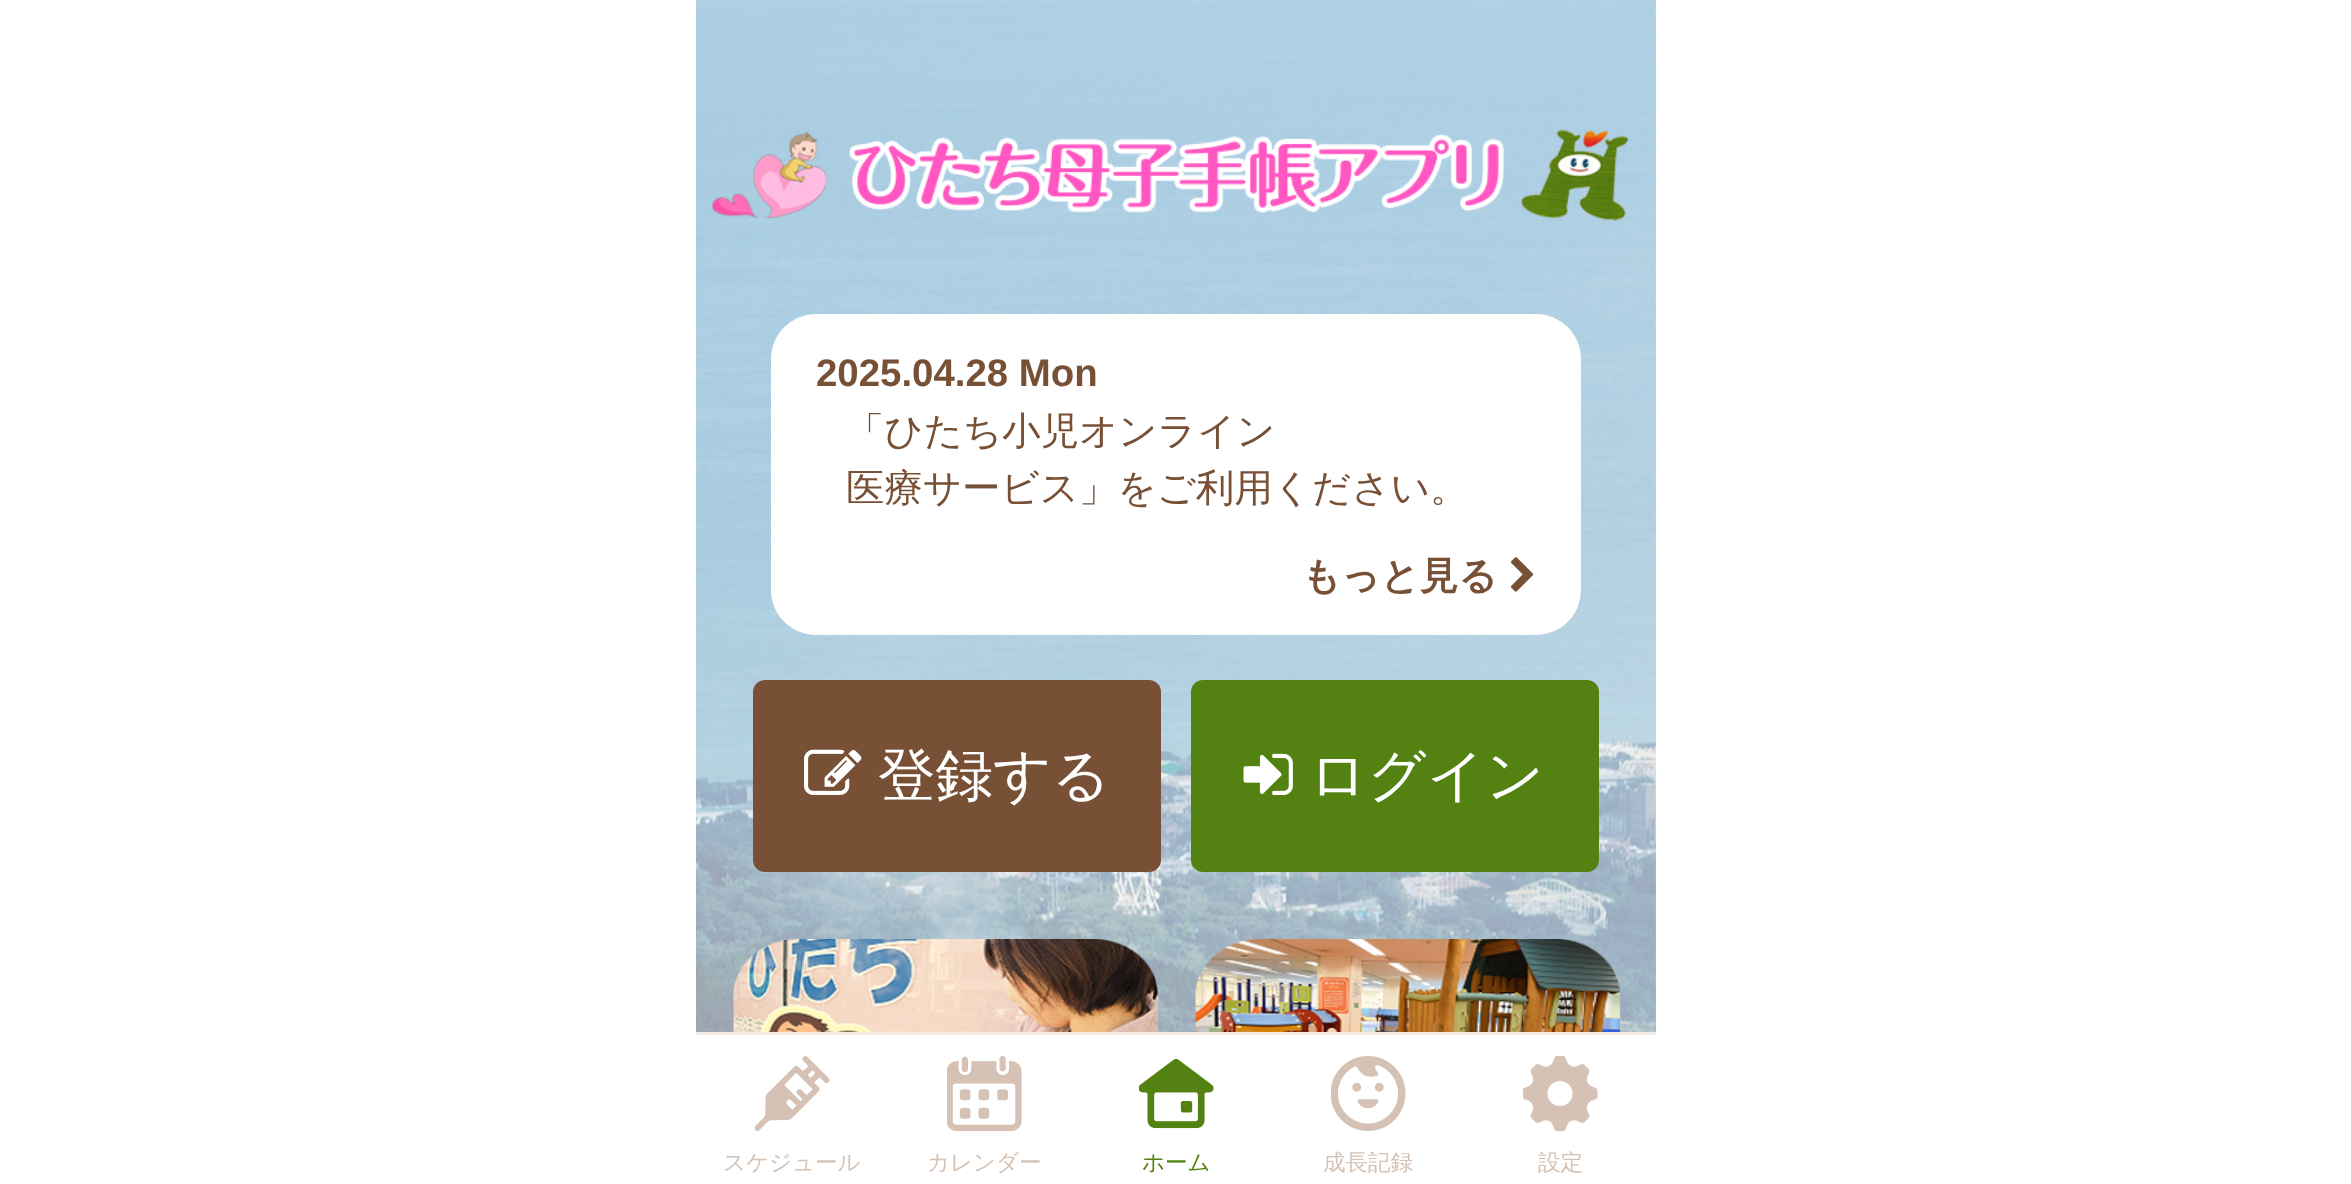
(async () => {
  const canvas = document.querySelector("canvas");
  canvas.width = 2351;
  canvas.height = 1184;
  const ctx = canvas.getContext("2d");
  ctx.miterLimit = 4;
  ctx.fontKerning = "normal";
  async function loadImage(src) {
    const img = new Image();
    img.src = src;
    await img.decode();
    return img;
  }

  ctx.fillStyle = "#ffffff";
  ctx.fillRect(0, 0, 2351, 1184);
  ctx.drawImage(await loadImage("img/1.png"), 696, 0, 960, 1032);
  ctx.drawImage(await loadImage("img/2.png"), 712, 129, 916, 92);
  ctx.beginPath();
  ctx.roundRect(771, 314, 810, 321, 45);
  ctx.fill();
  ctx.drawImage(await loadImage("img/3.png"), 1510, 557, 24, 35);
  ctx.fillStyle = "#775035";
  ctx.beginPath();
  ctx.roundRect(753, 680, 408, 192, 12);
  ctx.fill();
  ctx.drawImage(await loadImage("img/4.png"), 804, 749, 58, 46);
  ctx.fillStyle = "#538212";
  ctx.beginPath();
  ctx.roundRect(1191, 680, 408, 192, 12);
  ctx.fill();
  ctx.drawImage(await loadImage("img/5.png"), 1243, 753, 50, 42);
  ctx.drawImage(await loadImage("img/6.png"), 733, 939, 425, 93);
  ctx.drawImage(await loadImage("img/7.png"), 1195, 939, 425, 93);
  ctx.fillStyle = "#f5eee5";
  ctx.fillRect(696, 1032, 960, 3);
  ctx.drawImage(await loadImage("img/8.png"), 755, 1056, 75, 75);
  ctx.drawImage(await loadImage("img/9.png"), 947, 1056, 75, 75);
  ctx.drawImage(await loadImage("img/10.png"), 1139, 1058, 75, 71);
  ctx.drawImage(await loadImage("img/11.png"), 1331, 1056, 75, 75);
  ctx.drawImage(await loadImage("img/12.png"), 1523, 1056, 75, 75);
  ctx.font = "bold 38.4px Liberation Sans";
  ctx.fillStyle = "#775035";
  ctx.fillText("2025.04.28 Mon", 816, 386);
  ctx.font = "500 38.4px WenQuanYi Zen Hei";
  ctx.fillText("「ひたち小児オンライン", 846, 444);
  ctx.fillText("医療サービス」をご利用ください。", 846, 501);
  ctx.font = "bold 38.4px WenQuanYi Zen Hei";
  ctx.fillText("もっと見る", 1302, 589);
  ctx.font = "500 57.5px WenQuanYi Zen Hei";
  ctx.fillStyle = "#ffffff";
  ctx.fillText("登録する", 878, 795);
  ctx.fillText("ログイン", 1309, 795);
  ctx.font = "500 22.5px WenQuanYi Zen Hei";
  ctx.fillStyle = "#d5c2b4";
  ctx.fillText("スケジュール", 723, 1170);
  ctx.fillText("カレンダー", 927, 1170);
  ctx.fillStyle = "#538212";
  ctx.fillText("ホーム", 1142, 1170);
  ctx.fillStyle = "#d5c2b4";
  ctx.fillText("成長記録", 1323, 1170);
  ctx.fillText("設定", 1538, 1170);
})();
